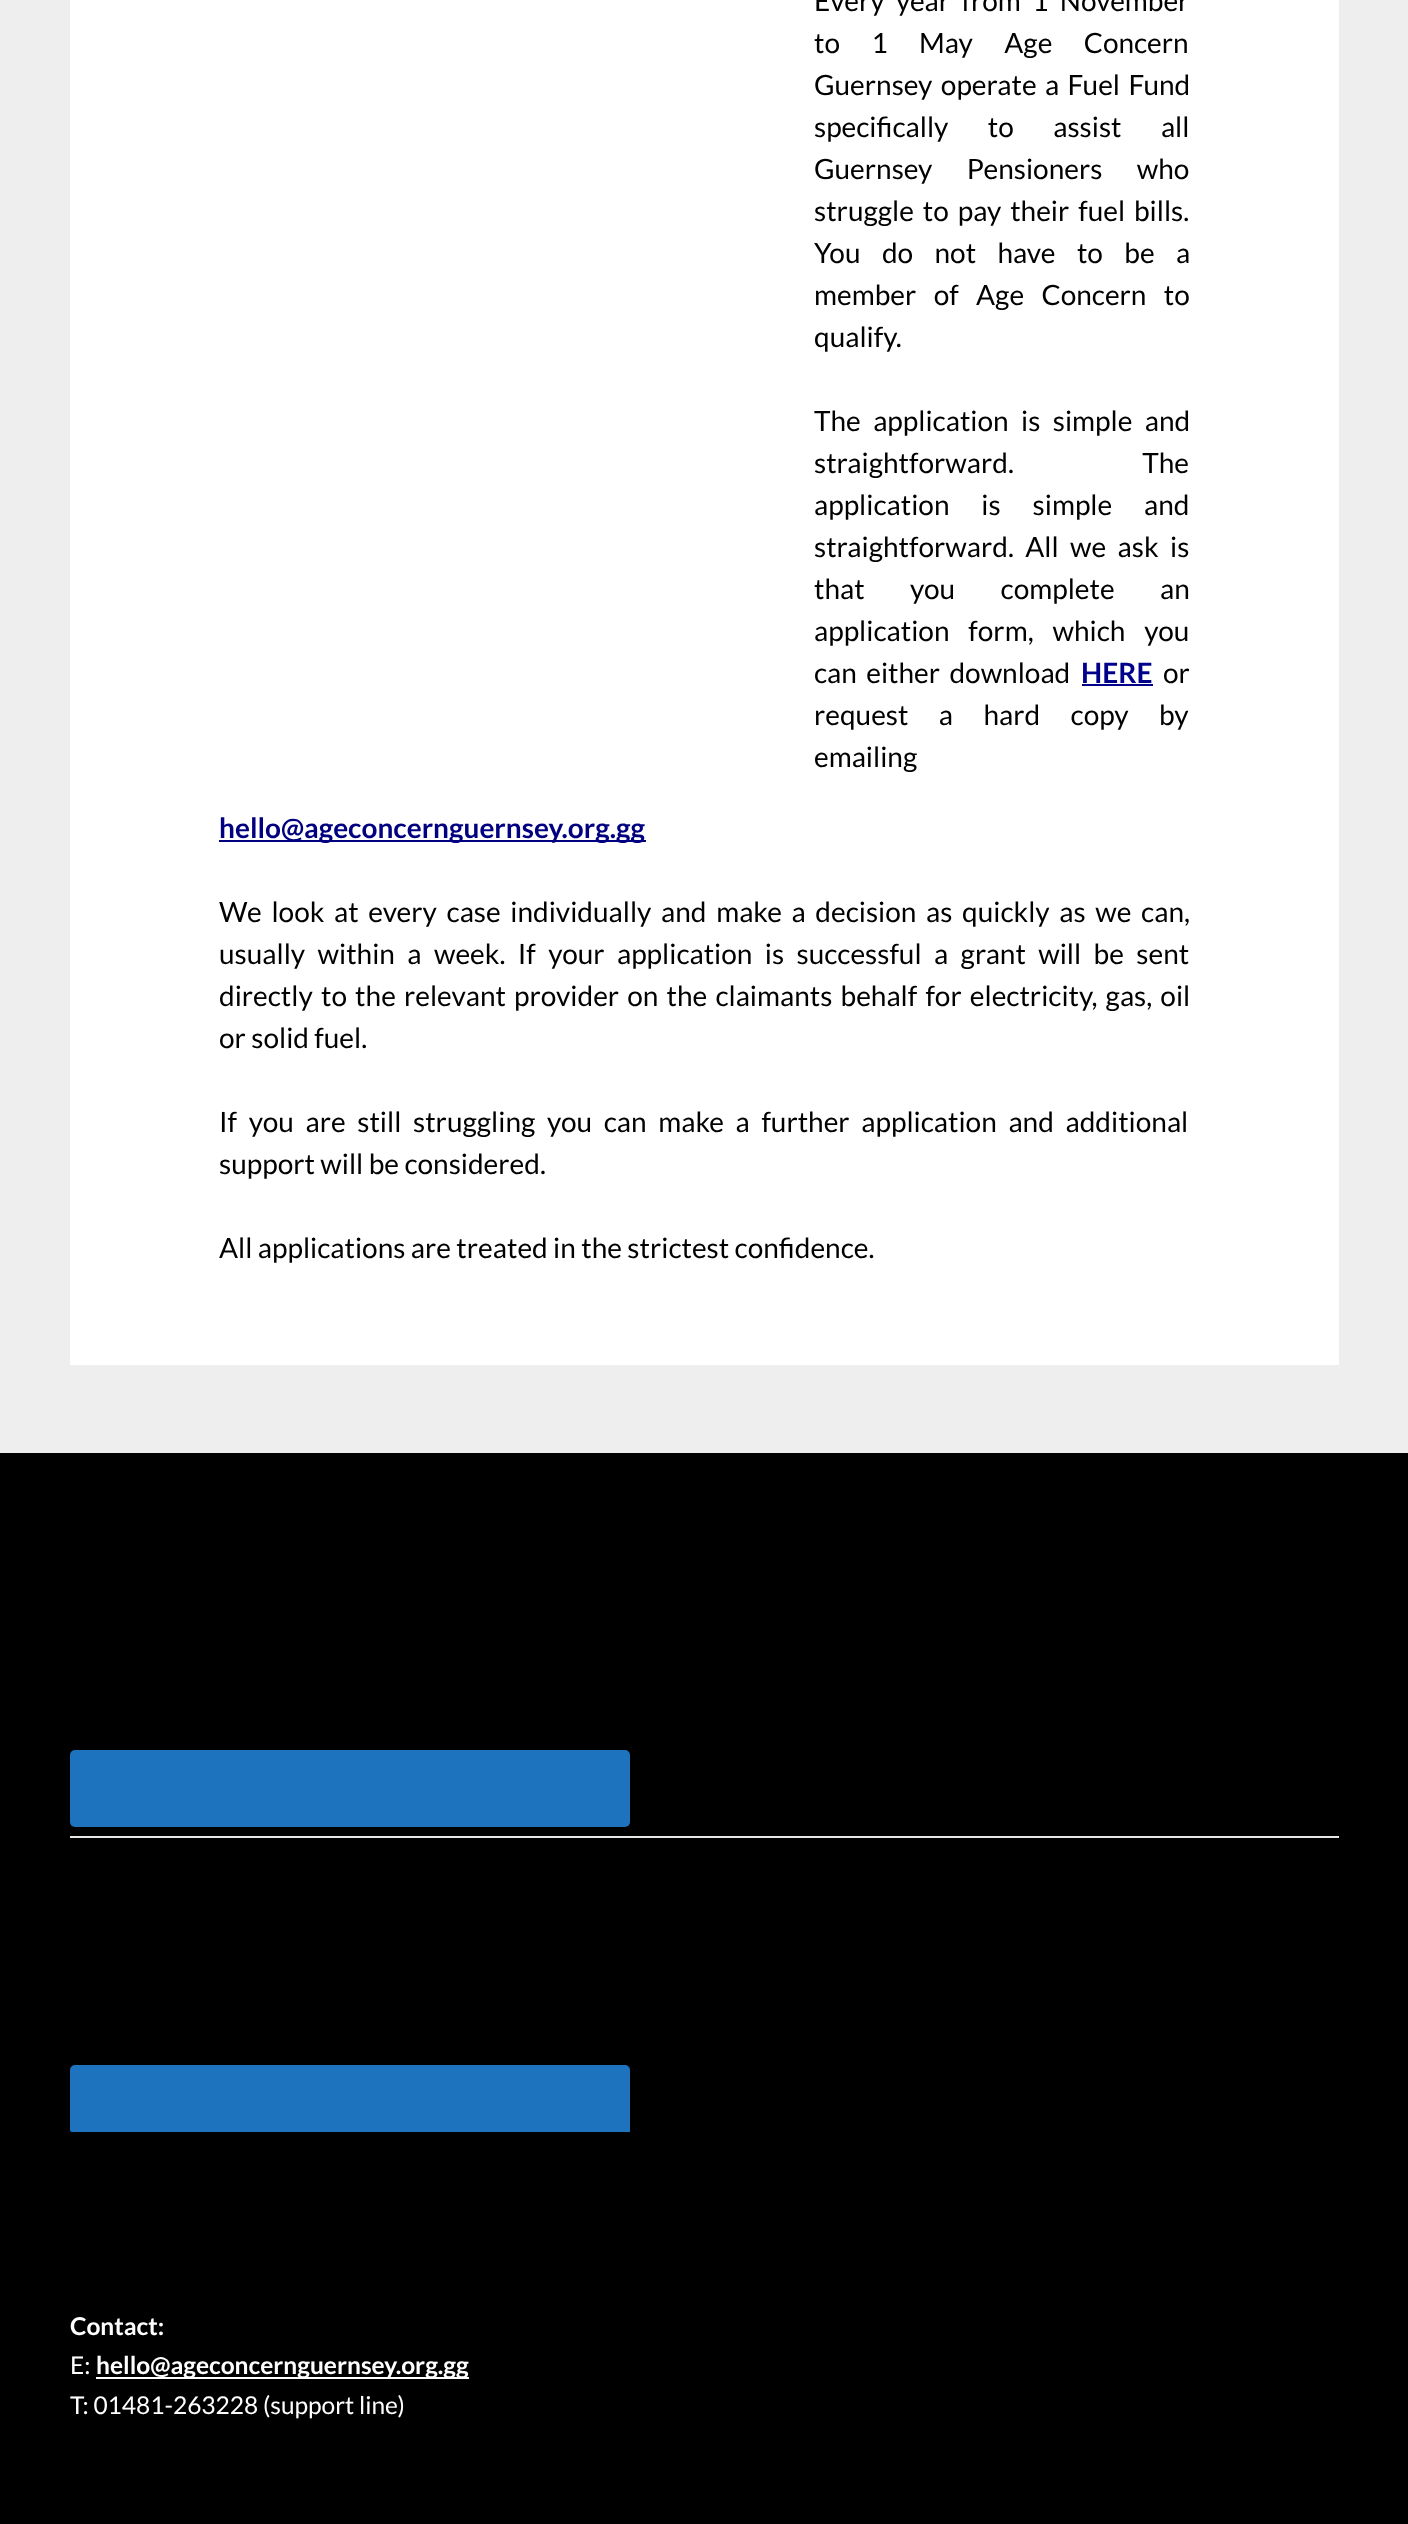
(async () => {
  const canvas = document.querySelector("canvas");
  canvas.width = 1408;
  canvas.height = 2524;
  const ctx = canvas.getContext("2d");
  ctx.miterLimit = 4;
  ctx.fontKerning = "normal";

  ctx.fillStyle = "#eeeeee";
  ctx.fillRect(0, 0, 1408, 2524);
  for (const [x, y, w, h, color] of [
    [70, 0, 1269, 1365, "#ffffff"],
    [1082, 684, 71, 2, "#00008b"],
    [219, 840, 427, 2, "#000080"],
    [0, 1453, 1408, 1071, "#000000"],
    [70, 1836, 1269, 2, "#e6e6e6"],
  ]) {
    ctx.fillStyle = color;
    ctx.fillRect(x, y, w, h);
  }
  ctx.fillStyle = "#1e73be";
  ctx.beginPath();
  ctx.roundRect(70, 1750, 560, 77, 5);
  ctx.fill();
  ctx.beginPath();
  ctx.roundRect(70, 2065, 560, 67, [5, 5, 0, 2]);
  ctx.fill();
  ctx.fillStyle = "#ffffff";
  ctx.fillRect(96, 2377, 373, 2);
  ctx.wordSpacing = "6px";
  ctx.font = "28px Lato";
  ctx.fillStyle = "#000000";
  ctx.fillText("Every year from 1 November", 814, 11);
  ctx.wordSpacing = "26px";
  ctx.fillText("to 1 May Age Concern", 814, 53);
  ctx.wordSpacing = "3px";
  ctx.fillText("Guernsey operate a Fuel Fund", 814, 95);
  ctx.wordSpacing = "34px";
  ctx.fillText("specifically to assist all", 814, 137);
  ctx.wordSpacing = "29px";
  ctx.fillText("Guernsey Pensioners who", 814, 179);
  ctx.wordSpacing = "3.5px";
  ctx.fillText("struggle to pay their fuel bills.", 814, 221);
  ctx.wordSpacing = "16px";
  ctx.fillText("You do not have to be a", 814, 263);
  ctx.wordSpacing = "12px";
  ctx.fillText("member of Age Concern to", 814, 305);
  ctx.wordSpacing = "0px";
  ctx.fillText("qualify.", 814, 347);
  ctx.wordSpacing = "7px";
  ctx.fillText("The application is simple and", 814, 431);
  ctx.wordSpacing = "123px";
  ctx.fillText("straightforward. The", 814, 473);
  ctx.wordSpacing = "26.5px";
  ctx.fillText("application is simple and", 814, 515);
  ctx.wordSpacing = "6px";
  ctx.fillText("straightforward. All we ask is", 814, 557);
  ctx.wordSpacing = "40px";
  ctx.fillText("that you complete an", 814, 599);
  ctx.wordSpacing = "13.5px";
  ctx.fillText("application form, which you", 814, 641);
  ctx.wordSpacing = "4px";
  ctx.fillText("can either download", 814, 683);
  ctx.wordSpacing = "0px";
  ctx.font = "bold 28px Lato";
  ctx.fillStyle = "#00008b";
  ctx.fillText("HERE", 1081, 683);
  ctx.font = "28px Lato";
  ctx.fillStyle = "#000000";
  ctx.fillText("or", 1163, 683);
  ctx.wordSpacing = "25px";
  ctx.fillText("request a hard copy by", 814, 725);
  ctx.wordSpacing = "0px";
  ctx.fillText("emailing", 814, 767);
  ctx.font = "bold 28px Lato";
  ctx.fillStyle = "#000080";
  ctx.fillText("hello@ageconcernguernsey.org.gg", 219, 838);
  ctx.wordSpacing = "4.25px";
  ctx.font = "28px Lato";
  ctx.fillStyle = "#000000";
  ctx.fillText("We look at every case individually and make a decision as quickly as we can,", 219, 922);
  ctx.wordSpacing = "7px";
  ctx.fillText("usually within a week. If your application is successful a grant will be sent", 219, 964);
  ctx.wordSpacing = "2.75px";
  ctx.fillText("directly to the relevant provider on the claimants behalf for electricity, gas, oil", 219, 1006);
  ctx.wordSpacing = "0px";
  ctx.fillText("or solid fuel.", 219, 1048);
  ctx.wordSpacing = "6.25px";
  ctx.fillText("If you are still struggling you can make a further application and additional", 219, 1132);
  ctx.wordSpacing = "0px";
  ctx.fillText("support will be considered.", 219, 1174);
  ctx.fillText("All applications are treated in the strictest confidence.", 219, 1258);
  ctx.font = "bold 24.5px Lato";
  ctx.fillStyle = "#ffffff";
  ctx.fillText("Contact:", 70, 2335);
  ctx.font = "24.5px Lato";
  ctx.fillText("E:", 70, 2374);
  ctx.font = "bold 24.5px Lato";
  ctx.fillText("hello@ageconcernguernsey.org.gg", 96, 2374);
  ctx.font = "24.5px Lato";
  ctx.fillText("T: 01481-263228 (support line)", 70, 2414);
})();
